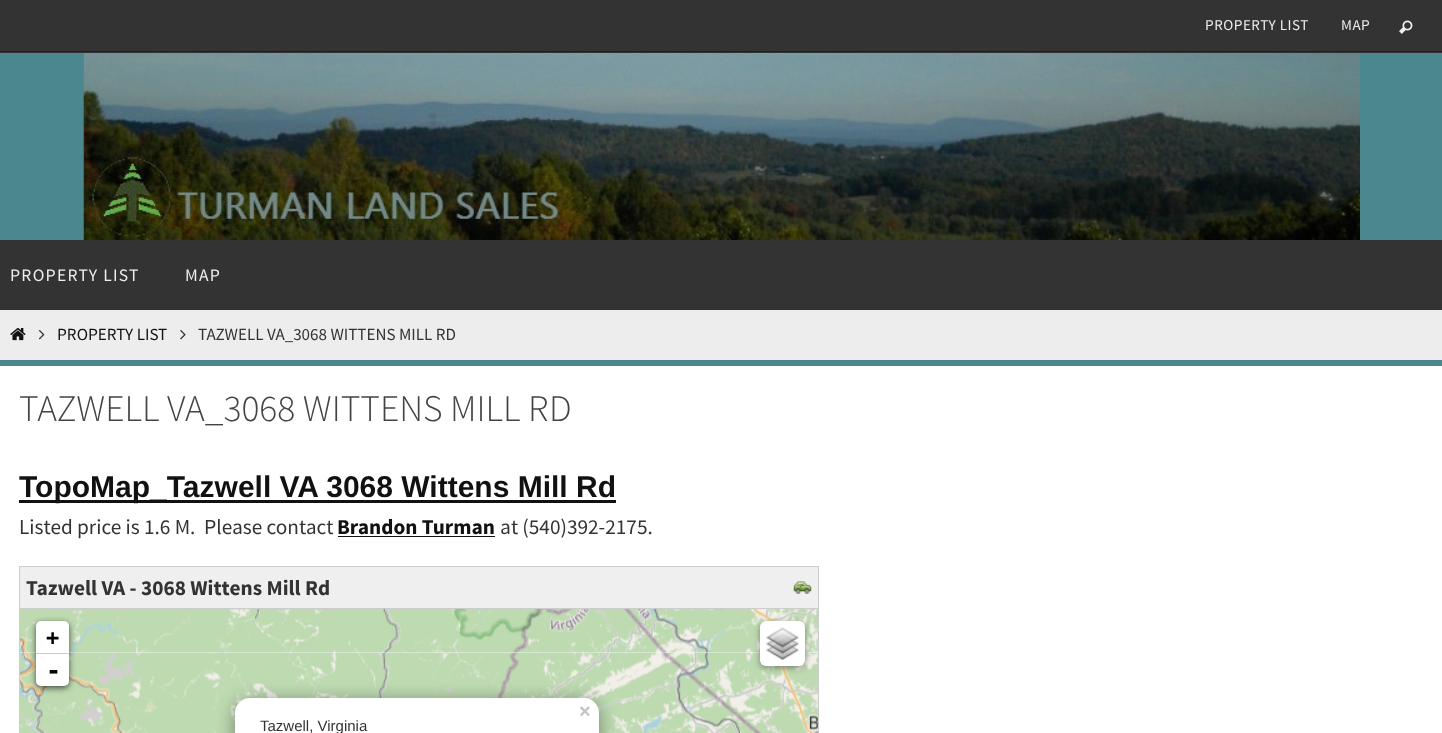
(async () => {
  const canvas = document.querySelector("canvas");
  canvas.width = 1442;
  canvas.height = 733;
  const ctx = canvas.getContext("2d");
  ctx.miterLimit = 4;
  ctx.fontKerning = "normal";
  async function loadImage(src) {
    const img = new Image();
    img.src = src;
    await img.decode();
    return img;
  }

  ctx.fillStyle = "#4a878e";
  ctx.fillRect(0, 0, 1442, 733);
  ctx.fillStyle = "#333333";
  ctx.fillRect(0, 0, 1442, 53);
  ctx.fillStyle = "#1f1f1f";
  ctx.fillRect(0, 51, 1442, 1);
  ctx.drawImage(await loadImage("img/1.png"), 1399, 20, 14, 14);
  ctx.drawImage(await loadImage("img/2.png"), 83, 53, 1277, 187);
  ctx.fillStyle = "#333333";
  ctx.fillRect(0, 240, 1442, 70);
  ctx.fillStyle = "#ededed";
  ctx.fillRect(0, 310, 1442, 50);
  ctx.drawImage(await loadImage("img/3.png"), 10, 328, 16, 13);
  ctx.drawImage(await loadImage("img/4.png"), 38, 330, 7, 10);
  ctx.drawImage(await loadImage("img/5.png"), 180, 330, 6, 10);
  for (const [x, y, w, h, color] of [
    [0, 366, 1442, 367, "#ffffff"],
    [19, 500, 597, 3, "#111111"],
    [338, 536, 157, 1, "#111111"],
    [20, 567, 798, 41, "#efefef"],
    [19, 566, 800, 1, "#cccccc"],
    [818, 566, 1, 42, "#cccccc"],
    [19, 566, 1, 42, "#cccccc"],
  ]) {
    ctx.fillStyle = color;
    ctx.fillRect(x, y, w, h);
  }
  ctx.drawImage(await loadImage("img/6.png"), 793, 581, 19, 13);
  ctx.fillStyle = "#f6f6f6";
  ctx.fillRect(20, 652, 798, 1);
  ctx.strokeStyle = "#cccccc";
  ctx.strokeRect(19.5, 608.5, 799, 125);
  ctx.drawImage(await loadImage("img/8.png"), 20, 609, 205, 44);
  ctx.drawImage(await loadImage("img/11.png"), 20, 653, 205, 80);
  ctx.fillStyle = "rgba(0, 0, 0, 0.65)";
  ctx.filter = "blur(3px)";
  ctx.beginPath();
  ctx.roundRect(36, 623, 33, 65, 5);
  ctx.fill();
  ctx.filter = "none";
  ctx.fillStyle = "#ffffff";
  ctx.beginPath();
  ctx.roundRect(36, 621, 33, 33, [5, 5, 0, 0]);
  ctx.fill();
  ctx.fillStyle = "#cccccc";
  ctx.fillRect(36, 653, 33, 1);
  ctx.fillStyle = "#ffffff";
  ctx.beginPath();
  ctx.roundRect(36, 654, 33, 32, [0, 0, 5, 5]);
  ctx.fill();
  ctx.drawImage(await loadImage("img/10.png"), 545, 609, 273, 44);
  ctx.drawImage(await loadImage("img/13.png"), 545, 653, 273, 80);
  ctx.fillStyle = "rgba(0, 0, 0, 0.4)";
  ctx.filter = "blur(3px)";
  ctx.beginPath();
  ctx.roundRect(760, 623, 45, 45, 6);
  ctx.fill();
  ctx.filter = "none";
  ctx.fillStyle = "#ffffff";
  ctx.beginPath();
  ctx.roundRect(760, 621, 45, 45, 6);
  ctx.fill();
  ctx.drawImage(await loadImage("img/7.png"), 766, 627, 33, 33);
  ctx.drawImage(await loadImage("img/9.png"), 225, 609, 320, 44);
  ctx.drawImage(await loadImage("img/12.png"), 225, 653, 320, 80);
  ctx.fillStyle = "rgba(0, 0, 0, 0.4)";
  ctx.filter = "blur(9px)";
  ctx.beginPath();
  ctx.roundRect(235, 701, 364, 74, 15);
  ctx.fill();
  ctx.filter = "none";
  ctx.fillStyle = "#ffffff";
  ctx.beginPath();
  ctx.roundRect(235, 698, 364, 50, 15);
  ctx.fill();
  ctx.letterSpacing = "0.5px";
  ctx.font = "15px Source Sans Pro";
  ctx.fillStyle = "#eeeeee";
  ctx.fillText("PROPERTY LIST", 1205, 30);
  ctx.fillText("MAP", 1341, 30);
  ctx.letterSpacing = "1.25px";
  ctx.font = "17.5px Source Sans Pro";
  ctx.fillText("PROPERTY LIST", 10, 281);
  ctx.fillText("MAP", 185, 281);
  ctx.letterSpacing = "0px";
  ctx.font = "17px Source Sans Pro";
  ctx.fillStyle = "#111111";
  ctx.fillText("PROPERTY LIST", 57, 340);
  ctx.fillStyle = "#333333";
  ctx.fillText("TAZWELL VA_3068 WITTENS MILL RD", 198, 340);
  ctx.font = "300 37.5px Source Sans Pro";
  ctx.fillStyle = "#444444";
  ctx.fillText("TAZWELL VA_3068 WITTENS MILL RD", 19, 421);
  ctx.font = "bold 30px Liberation Sans";
  ctx.fillStyle = "#111111";
  ctx.fillText("TopoMap_Tazwell VA 3068 Wittens Mill Rd", 19, 497);
  ctx.font = "21.25px Source Sans Pro";
  ctx.fillStyle = "#333333";
  ctx.fillText("Listed price is 1.6 M.  Please contact", 19, 534);
  ctx.font = "bold 21.25px Source Sans Pro";
  ctx.fillStyle = "#111111";
  ctx.fillText("Brandon Turman", 337, 534);
  ctx.font = "21.25px Source Sans Pro";
  ctx.fillStyle = "#333333";
  ctx.fillText("at (540)392-2175.", 500, 534);
  ctx.font = "bold 21.25px Source Sans Pro";
  ctx.fillText("Tazwell VA - 3068 Wittens Mill Rd", 26, 595);
  ctx.font = "bold 22px DejaVu Sans Mono";
  ctx.fillStyle = "#000000";
  ctx.fillText("+", 46, 645);
  ctx.font = "bold 25px DejaVu Sans Mono";
  ctx.fillText("-", 46, 679);
  ctx.font = "bold 20px Liberation Sans";
  ctx.fillStyle = "#c3c3c3";
  ctx.fillText("×", 579, 718);
  ctx.font = "15px Liberation Sans";
  ctx.fillStyle = "#333333";
  ctx.fillText("Tazwell, Virginia", 260, 731);
})();
